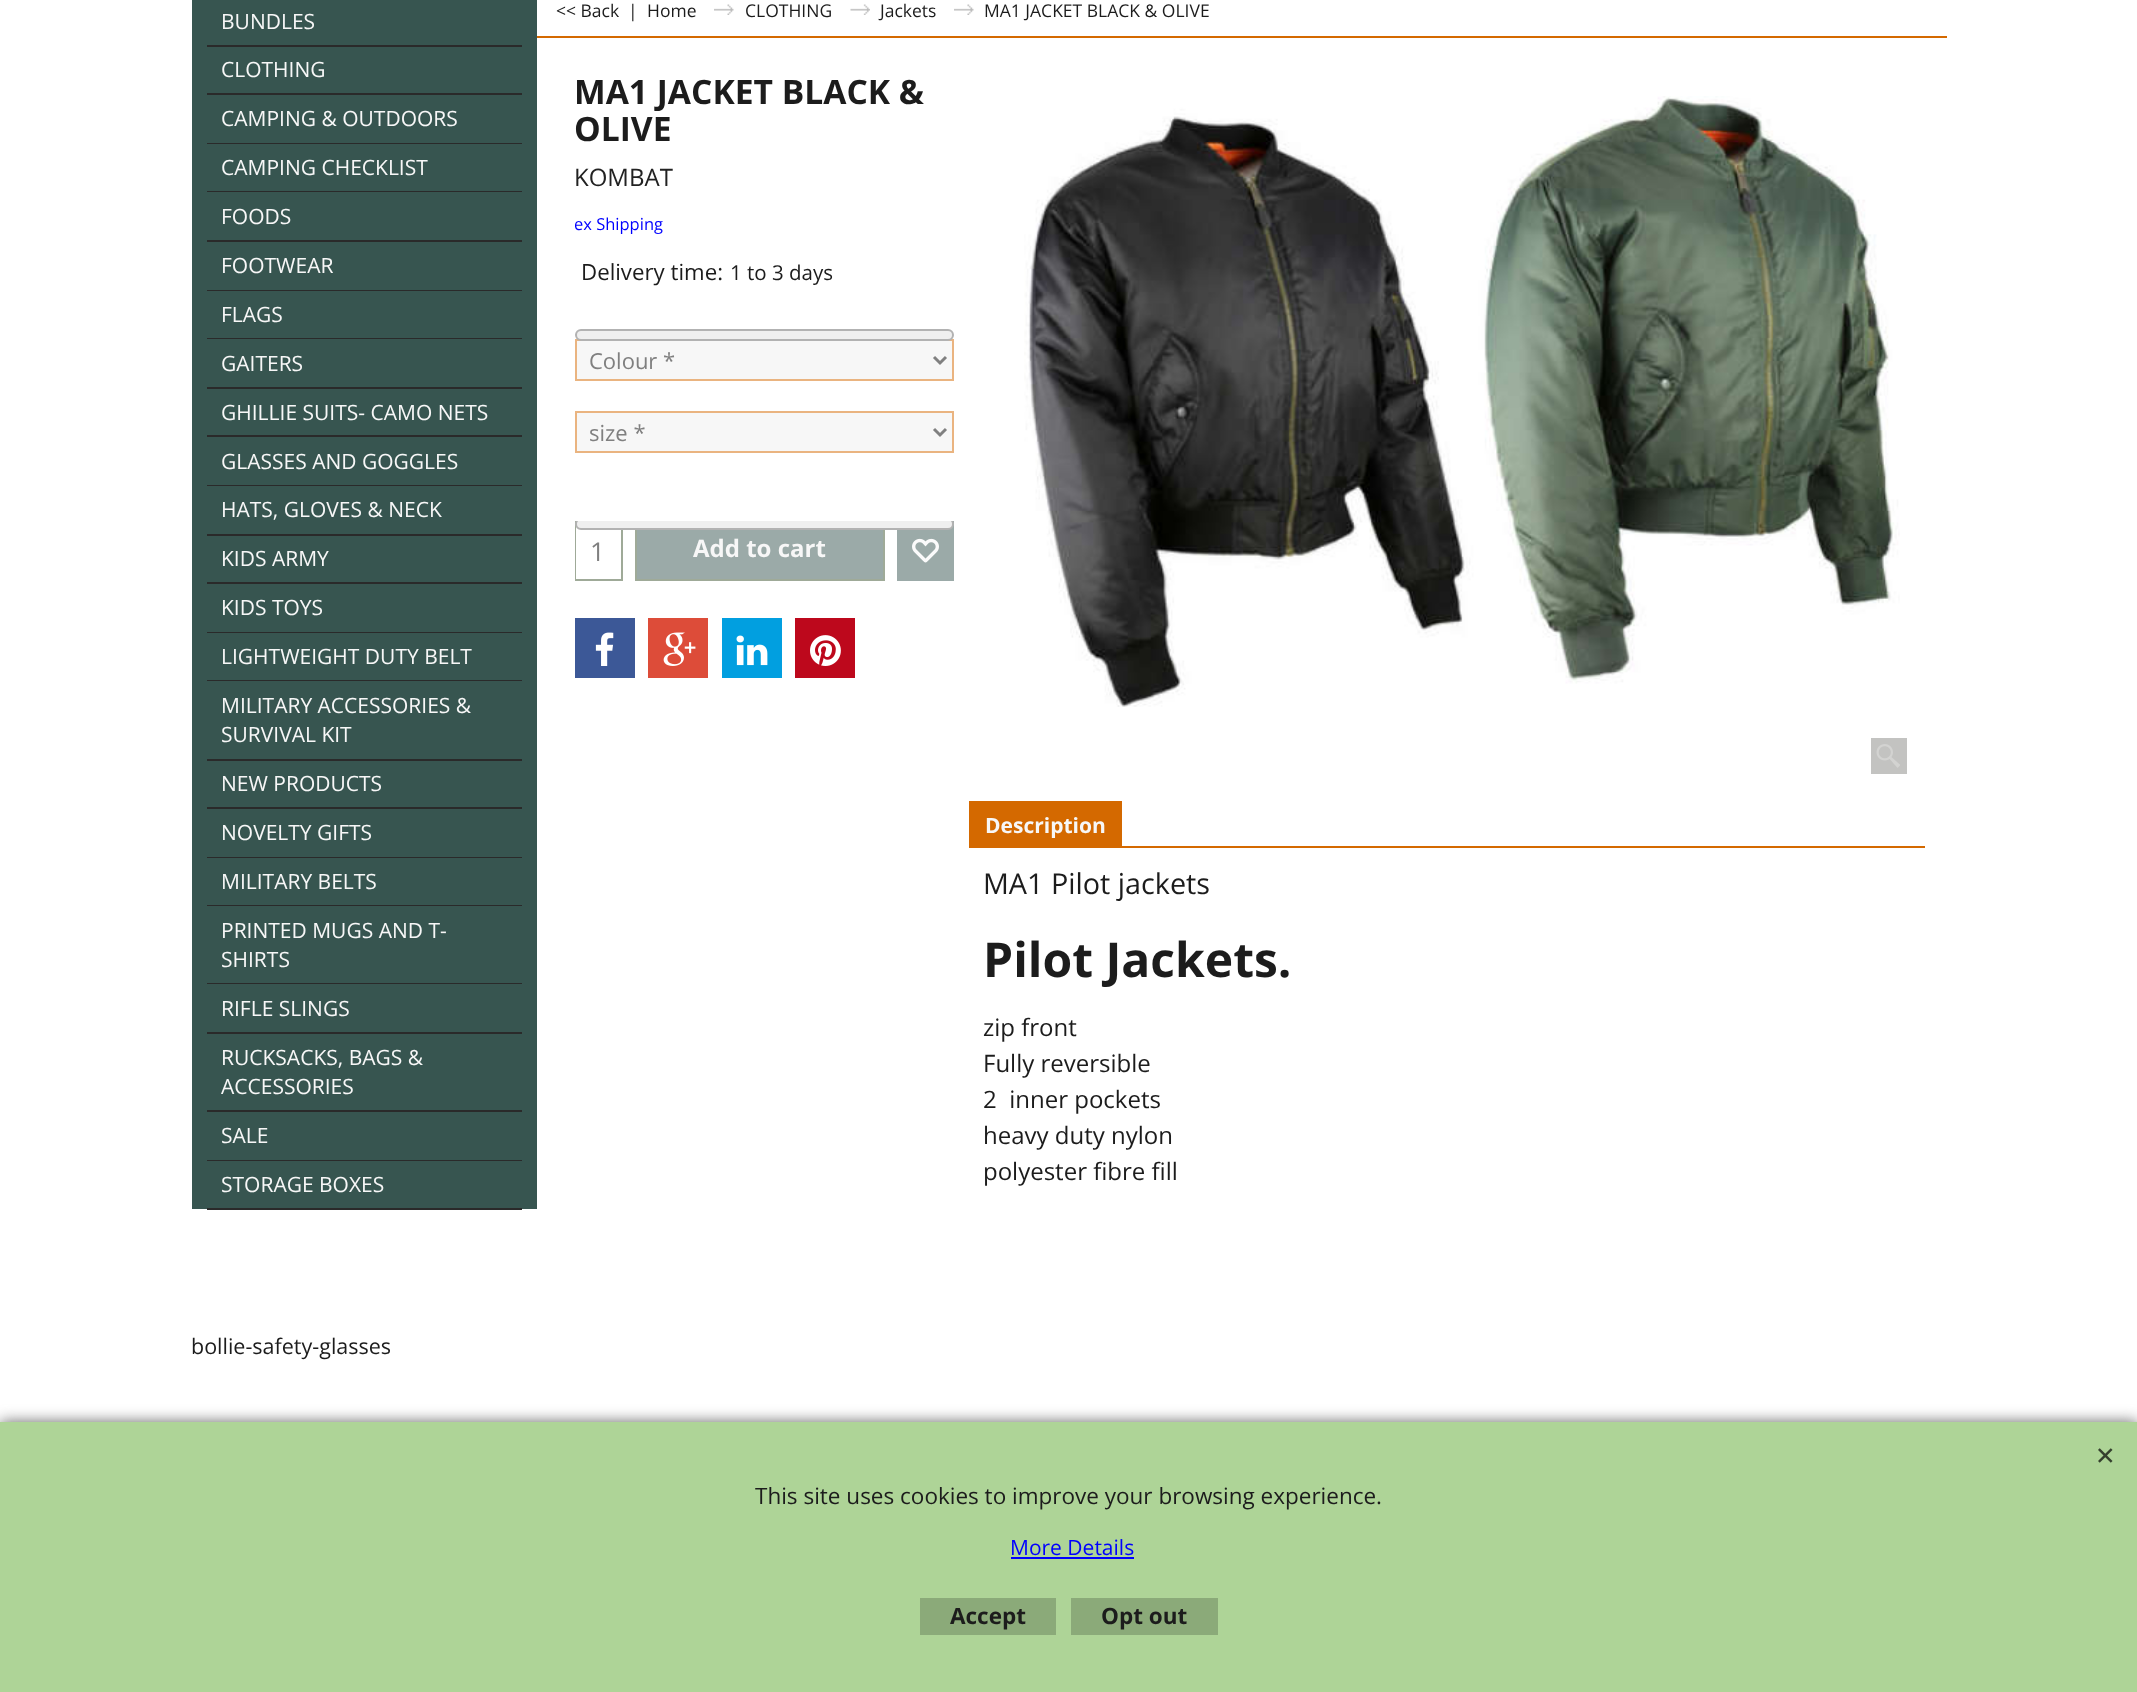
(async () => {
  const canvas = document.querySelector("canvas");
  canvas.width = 2137;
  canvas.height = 1692;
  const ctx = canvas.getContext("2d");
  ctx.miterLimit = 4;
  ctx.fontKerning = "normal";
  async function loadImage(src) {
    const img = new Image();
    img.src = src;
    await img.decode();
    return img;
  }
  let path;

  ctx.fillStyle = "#ffffff";
  ctx.fillRect(0, 0, 2137, 1692);
  for (const [x, y, w, h, color] of [
    [192, 0, 345, 1209, "#375550"],
    [207, 45, 315, 2, "#2a2a2a"],
    [207, 93, 315, 2, "#2a2a2a"],
    [207, 143, 315, 1, "#2a2a2a"],
    [207, 191, 315, 1, "#2a2a2a"],
    [207, 240, 315, 2, "#2a2a2a"],
    [207, 290, 315, 1, "#2a2a2a"],
    [207, 338, 315, 1, "#2a2a2a"],
    [207, 387, 315, 2, "#2a2a2a"],
    [207, 435, 315, 2, "#2a2a2a"],
    [207, 485, 315, 1, "#2a2a2a"],
    [207, 534, 315, 2, "#2a2a2a"],
    [207, 582, 315, 2, "#2a2a2a"],
    [207, 632, 315, 1, "#2a2a2a"],
    [207, 680, 315, 1, "#2a2a2a"],
    [207, 759, 315, 2, "#2a2a2a"],
    [207, 807, 315, 2, "#2a2a2a"],
    [207, 857, 315, 1, "#2a2a2a"],
    [207, 905, 315, 1, "#2a2a2a"],
    [207, 983, 315, 1, "#2a2a2a"],
    [207, 1032, 315, 2, "#2a2a2a"],
    [207, 1110, 315, 2, "#2a2a2a"],
    [207, 1160, 315, 1, "#2a2a2a"],
    [207, 1208, 315, 2, "#2a2a2a"],
    [537, 36, 1410, 2, "#d46900"],
  ]) {
    ctx.fillStyle = color;
    ctx.fillRect(x, y, w, h);
  }
  ctx.drawImage(await loadImage("img/1.png"), 714, 4, 20, 11);
  ctx.drawImage(await loadImage("img/2.png"), 850, 4, 20, 11);
  ctx.drawImage(await loadImage("img/3.png"), 954, 4, 20, 11);
  ctx.fillStyle = "#f7f7f7";
  ctx.beginPath();
  ctx.rect(576, 340, 377, 40);
  ctx.fill();
  ctx.strokeStyle = "#eab480";
  ctx.lineWidth = 2;
  ctx.stroke();
  ctx.fillStyle = "#efefef";
  ctx.beginPath();
  ctx.roundRect(576, 330, 377, 10, 5);
  ctx.fill();
  ctx.strokeStyle = "#b2b2b2";
  ctx.stroke();
  path = new Path2D("M934 357L940 363L946 357");
  ctx.strokeStyle = "#808080";
  ctx.lineWidth = 3;
  ctx.stroke(path);
  ctx.fillStyle = "#f7f7f7";
  ctx.beginPath();
  ctx.rect(576, 412, 377, 40);
  ctx.fill();
  ctx.strokeStyle = "#eab480";
  ctx.lineWidth = 2;
  ctx.stroke();
  path = new Path2D("M934 429L940 435L946 429");
  ctx.strokeStyle = "#808080";
  ctx.lineWidth = 3;
  ctx.stroke(path);
  ctx.strokeStyle = "#9faa98";
  ctx.lineWidth = 2;
  ctx.strokeRect(576, 522, 46, 58);
  ctx.fillStyle = "#ffffff";
  ctx.fillRect(576, 527, 1, 52);
  ctx.fillStyle = "#9baaa8";
  ctx.fillRect(637, 530, 246, 49);
  ctx.strokeRect(636, 522, 248, 58);
  ctx.fillRect(897, 521, 57, 60);
  ctx.save();
  ctx.beginPath();
  ctx.rect(575, 521, 379, 60);
  ctx.clip();
  ctx.fillStyle = "#efefef";
  ctx.beginPath();
  ctx.roundRect(576, 519, 377, 10, 5);
  ctx.fill();
  ctx.strokeStyle = "#b2b2b2";
  ctx.stroke();
  ctx.restore();
  ctx.drawImage(await loadImage("img/4.png"), 912, 538, 27, 25);
  ctx.fillStyle = "#3c5897";
  ctx.fillRect(575, 618, 60, 60);
  ctx.drawImage(await loadImage("img/5.png"), 595, 632, 19, 34);
  ctx.fillStyle = "#dd4c39";
  ctx.fillRect(648, 618, 60, 60);
  ctx.drawImage(await loadImage("img/6.png"), 663, 632, 33, 34);
  ctx.fillStyle = "#019fe0";
  ctx.fillRect(722, 618, 60, 60);
  ctx.drawImage(await loadImage("img/7.png"), 736, 635, 32, 31);
  ctx.fillStyle = "#bd081c";
  ctx.fillRect(795, 618, 60, 60);
  ctx.drawImage(await loadImage("img/8.png"), 810, 635, 31, 31);
  ctx.drawImage(await loadImage("img/9.png"), 1024, 96, 876, 611);
  ctx.fillStyle = "#c3c3c1";
  ctx.fillRect(1871, 738, 36, 36);
  ctx.drawImage(await loadImage("img/10.png"), 1876, 744, 24, 24);
  ctx.fillStyle = "#d46900";
  ctx.fillRect(969, 801, 153, 47);
  ctx.fillRect(1122, 846, 803, 2);
  ctx.fillStyle = "#666666";
  ctx.filter = "blur(7.5px)";
  ctx.beginPath();
  ctx.rect(0, 1422, 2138, 270);
  ctx.fill();
  ctx.filter = "none";
  ctx.fillStyle = "#aed497";
  ctx.fillRect(0, 1422, 2137, 270);
  ctx.drawImage(await loadImage("img/11.png"), 2098, 1448, 15, 15);
  for (const [x, y, w, h, color] of [
    [1011, 1557, 123, 2, "#0000ff"],
    [920, 1598, 136, 37, "#8baa79"],
    [1071, 1598, 147, 37, "#8baa79"],
  ]) {
    ctx.fillStyle = color;
    ctx.fillRect(x, y, w, h);
  }
  ctx.font = "21px Open Sans";
  ctx.fillStyle = "#f7f7f7";
  for (const [text, x, y] of [
    ["BUNDLES", 221, 29],
    ["CLOTHING", 221, 77],
    ["CAMPING & OUTDOORS", 221, 126],
    ["CAMPING CHECKLIST", 221, 175],
    ["FOODS", 221, 224],
    ["FOOTWEAR", 221, 273],
    ["FLAGS", 221, 322],
    ["GAITERS", 221, 371],
    ["GHILLIE SUITS- CAMO NETS", 221, 420],
    ["GLASSES AND GOGGLES", 221, 469],
    ["HATS, GLOVES & NECK", 221, 517],
    ["KIDS ARMY", 221, 566],
    ["KIDS TOYS", 221, 615],
    ["LIGHTWEIGHT DUTY BELT", 221, 664],
    ["MILITARY ACCESSORIES &", 221, 713],
    ["SURVIVAL KIT", 221, 742],
    ["NEW PRODUCTS", 221, 791],
    ["NOVELTY GIFTS", 221, 840],
    ["MILITARY BELTS", 221, 889],
    ["PRINTED MUGS AND T-", 221, 938],
    ["SHIRTS", 221, 967],
    ["RIFLE SLINGS", 221, 1016],
    ["RUCKSACKS, BAGS &", 221, 1065],
    ["ACCESSORIES", 221, 1094],
    ["SALE", 221, 1143],
    ["STORAGE BOXES", 221, 1192],
  ]) {
    ctx.fillText(text, x, y);
  }
  ctx.font = "17.5px Open Sans";
  ctx.fillStyle = "#1c1c1c";
  for (const [text, x, y] of [
    ["<< Back", 556, 17],
    ["|", 628, 17],
    ["Home", 647, 17],
    ["CLOTHING", 745, 17],
    ["Jackets", 880, 17],
    ["MA1 JACKET BLACK & OLIVE", 984, 17],
  ]) {
    ctx.fillText(text, x, y);
  }
  ctx.font = "bold 33.6px Open Sans";
  ctx.fillText("MA1 JACKET BLACK &", 574, 104);
  ctx.fillText("OLIVE", 574, 141);
  ctx.font = "24px Open Sans";
  ctx.fillStyle = "#222222";
  ctx.fillText("KOMBAT", 574, 186);
  ctx.save();
  ctx.beginPath();
  ctx.rect(575, 212, 379, 25);
  ctx.clip();
  ctx.font = "16.5px Open Sans";
  ctx.fillStyle = "#0000ff";
  ctx.fillText("ex Shipping", 574, 230);
  ctx.restore();
  ctx.font = "22.25px Open Sans";
  ctx.fillStyle = "#1c1c1c";
  ctx.fillText("Delivery time:", 581, 280);
  ctx.font = "20.5px Open Sans";
  ctx.fillText("1 to 3 days", 730, 280);
  ctx.font = "22px Open Sans";
  ctx.fillStyle = "#808080";
  ctx.fillText("Colour *", 589, 369);
  ctx.save();
  ctx.beginPath();
  ctx.rect(590, 416, 339, 33);
  ctx.clip();
  ctx.fillText("size *", 589, 441);
  ctx.restore();
  ctx.font = "26px Open Sans";
  ctx.fillText("1", 590, 561);
  ctx.font = "bold 24px Open Sans";
  ctx.fillStyle = "#f7f7f7";
  ctx.fillText("Add to cart", 693, 557);
  ctx.font = "bold 21px Open Sans";
  ctx.fillText("Description", 985, 833);
  ctx.font = "28.75px Open Sans";
  ctx.fillStyle = "#1c1c1c";
  ctx.fillText("MA1 Pilot jackets", 983, 894);
  ctx.font = "bold 48px Open Sans";
  ctx.fillText("Pilot Jackets.", 983, 977);
  ctx.font = "24px Open Sans";
  for (const [text, x, y] of [
    ["zip front", 983, 1036],
    ["Fully reversible", 983, 1072],
    ["2  inner pockets", 983, 1108],
    ["heavy duty nylon", 983, 1144],
    ["polyester fibre fill", 983, 1180],
  ]) {
    ctx.fillText(text, x, y);
  }
  ctx.font = "21.5px Open Sans";
  ctx.fillText("bollie-safety-glasses", 191, 1354);
  ctx.font = "22.5px Open Sans";
  ctx.fillText("This site uses cookies to improve your browsing experience.", 755, 1504);
  ctx.font = "21px Open Sans";
  ctx.fillStyle = "#0000ff";
  ctx.fillText("More Details", 1010, 1555);
  ctx.font = "bold 22.5px Open Sans";
  ctx.fillStyle = "#1c1c1c";
  ctx.fillText("Accept", 950, 1624);
  ctx.fillText("Opt out", 1101, 1624);
})();
